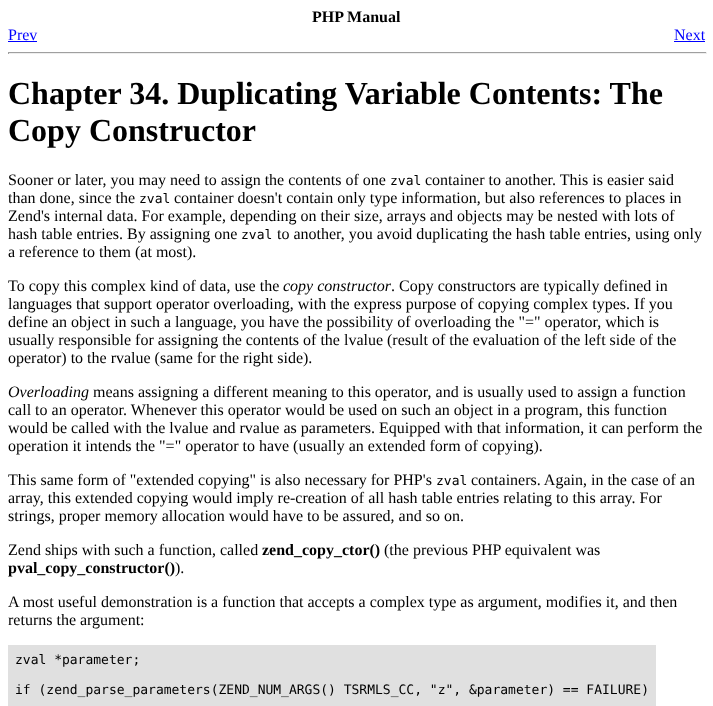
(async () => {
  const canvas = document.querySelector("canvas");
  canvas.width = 713;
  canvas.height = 706;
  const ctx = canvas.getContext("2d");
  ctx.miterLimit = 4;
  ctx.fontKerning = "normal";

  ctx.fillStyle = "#ffffff";
  ctx.fillRect(0, 0, 713, 706);
  for (const [x, y, w, h, color] of [
    [8, 41, 29, 1, "#0000ff"],
    [674, 41, 31, 1, "#0000ff"],
    [8, 52, 699, 1, "#9f9f9f"],
    [706, 52, 1, 2, "#eeeeee"],
    [8, 53, 699, 1, "#eeeeee"],
    [8, 52, 1, 2, "#9f9f9f"],
    [8, 645, 648, 61, "#e0e0e0"],
  ]) {
    ctx.fillStyle = color;
    ctx.fillRect(x, y, w, h);
  }
  ctx.font = "bold 16px Liberation Serif";
  ctx.fillStyle = "#000000";
  ctx.fillText("PHP Manual", 312, 22);
  ctx.font = "16px Liberation Serif";
  ctx.fillStyle = "#0000ff";
  ctx.fillText("Prev", 8, 40);
  ctx.fillText("Next", 674, 40);
  ctx.font = "bold 32px Liberation Serif";
  ctx.fillStyle = "#000000";
  ctx.fillText("Chapter 34. Duplicating Variable Contents: The", 8, 104);
  ctx.fillText("Copy Constructor", 8, 141);
  ctx.font = "16px Liberation Serif";
  ctx.fillText("Sooner or later, you may need to assign the contents of one", 8, 185);
  ctx.font = "13px DejaVu Sans Mono";
  ctx.fillText("zval", 390, 185);
  ctx.font = "16px Liberation Serif";
  ctx.fillText("container to another. This is easier said", 425, 185);
  ctx.fillText("than done, since the", 8, 203);
  ctx.font = "13px DejaVu Sans Mono";
  ctx.fillText("zval", 139, 203);
  ctx.font = "16px Liberation Serif";
  for (const [text, x, y] of [
    ["container doesn't contain only type information, but also references to places in", 174, 203],
    ["Zend's internal data. For example, depending on their size, arrays and objects may be nested with lots of", 8, 221],
    ["hash table entries. By assigning one", 8, 239],
  ]) {
    ctx.fillText(text, x, y);
  }
  ctx.font = "13px DejaVu Sans Mono";
  ctx.fillText("zval", 241, 239);
  ctx.font = "16px Liberation Serif";
  for (const [text, x, y] of [
    ["to another, you avoid duplicating the hash table entries, using only", 277, 239],
    ["a reference to them (at most).", 8, 257],
    ["To copy this complex kind of data, use the", 8, 291],
  ]) {
    ctx.fillText(text, x, y);
  }
  ctx.font = "italic 16px Liberation Serif";
  ctx.fillText("copy constructor", 283, 291);
  ctx.font = "16px Liberation Serif";
  for (const [text, x, y] of [
    [". Copy constructors are typically defined in", 391, 291],
    ["languages that support operator overloading, with the express purpose of copying complex types. If you", 8, 309],
    ["define an object in such a language, you have the possibility of overloading the \"=\" operator, which is", 8, 327],
    ["usually responsible for assigning the contents of the lvalue (result of the evaluation of the left side of the", 8, 345],
    ["operator) to the rvalue (same for the right side).", 8, 363],
  ]) {
    ctx.fillText(text, x, y);
  }
  ctx.font = "italic 16px Liberation Serif";
  ctx.fillText("Overloading", 8, 397);
  ctx.font = "16px Liberation Serif";
  for (const [text, x, y] of [
    ["means assigning a different meaning to this operator, and is usually used to assign a function", 93, 397],
    ["call to an operator. Whenever this operator would be used on such an object in a program, this function", 8, 415],
    ["would be called with the lvalue and rvalue as parameters. Equipped with that information, it can perform the", 8, 433],
    ["operation it intends the \"=\" operator to have (usually an extended form of copying).", 8, 451],
    ["This same form of \"extended copying\" is also necessary for PHP's", 8, 485],
  ]) {
    ctx.fillText(text, x, y);
  }
  ctx.font = "13px DejaVu Sans Mono";
  ctx.fillText("zval", 436, 485);
  ctx.font = "16px Liberation Serif";
  for (const [text, x, y] of [
    ["containers. Again, in the case of an", 471, 485],
    ["array, this extended copying would imply re-creation of all hash table entries relating to this array. For", 8, 503],
    ["strings, proper memory allocation would have to be assured, and so on.", 8, 521],
    ["Zend ships with such a function, called", 8, 555],
  ]) {
    ctx.fillText(text, x, y);
  }
  ctx.font = "bold 16px Liberation Serif";
  ctx.fillText("zend_copy_ctor()", 262, 555);
  ctx.font = "16px Liberation Serif";
  ctx.fillText("(the previous PHP equivalent was", 384, 555);
  ctx.font = "bold 16px Liberation Serif";
  ctx.fillText("pval_copy_constructor()", 8, 573);
  ctx.font = "16px Liberation Serif";
  for (const [text, x, y] of [
    [").", 175, 573],
    ["A most useful demonstration is a function that accepts a complex type as argument, modifies it, and then", 8, 607],
    ["returns the argument:", 8, 625],
  ]) {
    ctx.fillText(text, x, y);
  }
  ctx.font = "13px DejaVu Sans Mono";
  ctx.fillText("zval *parameter;", 15, 664);
  ctx.fillText("if (zend_parse_parameters(ZEND_NUM_ARGS() TSRMLS_CC, \"z\", &parameter) == FAILURE)", 15, 694);
})();
